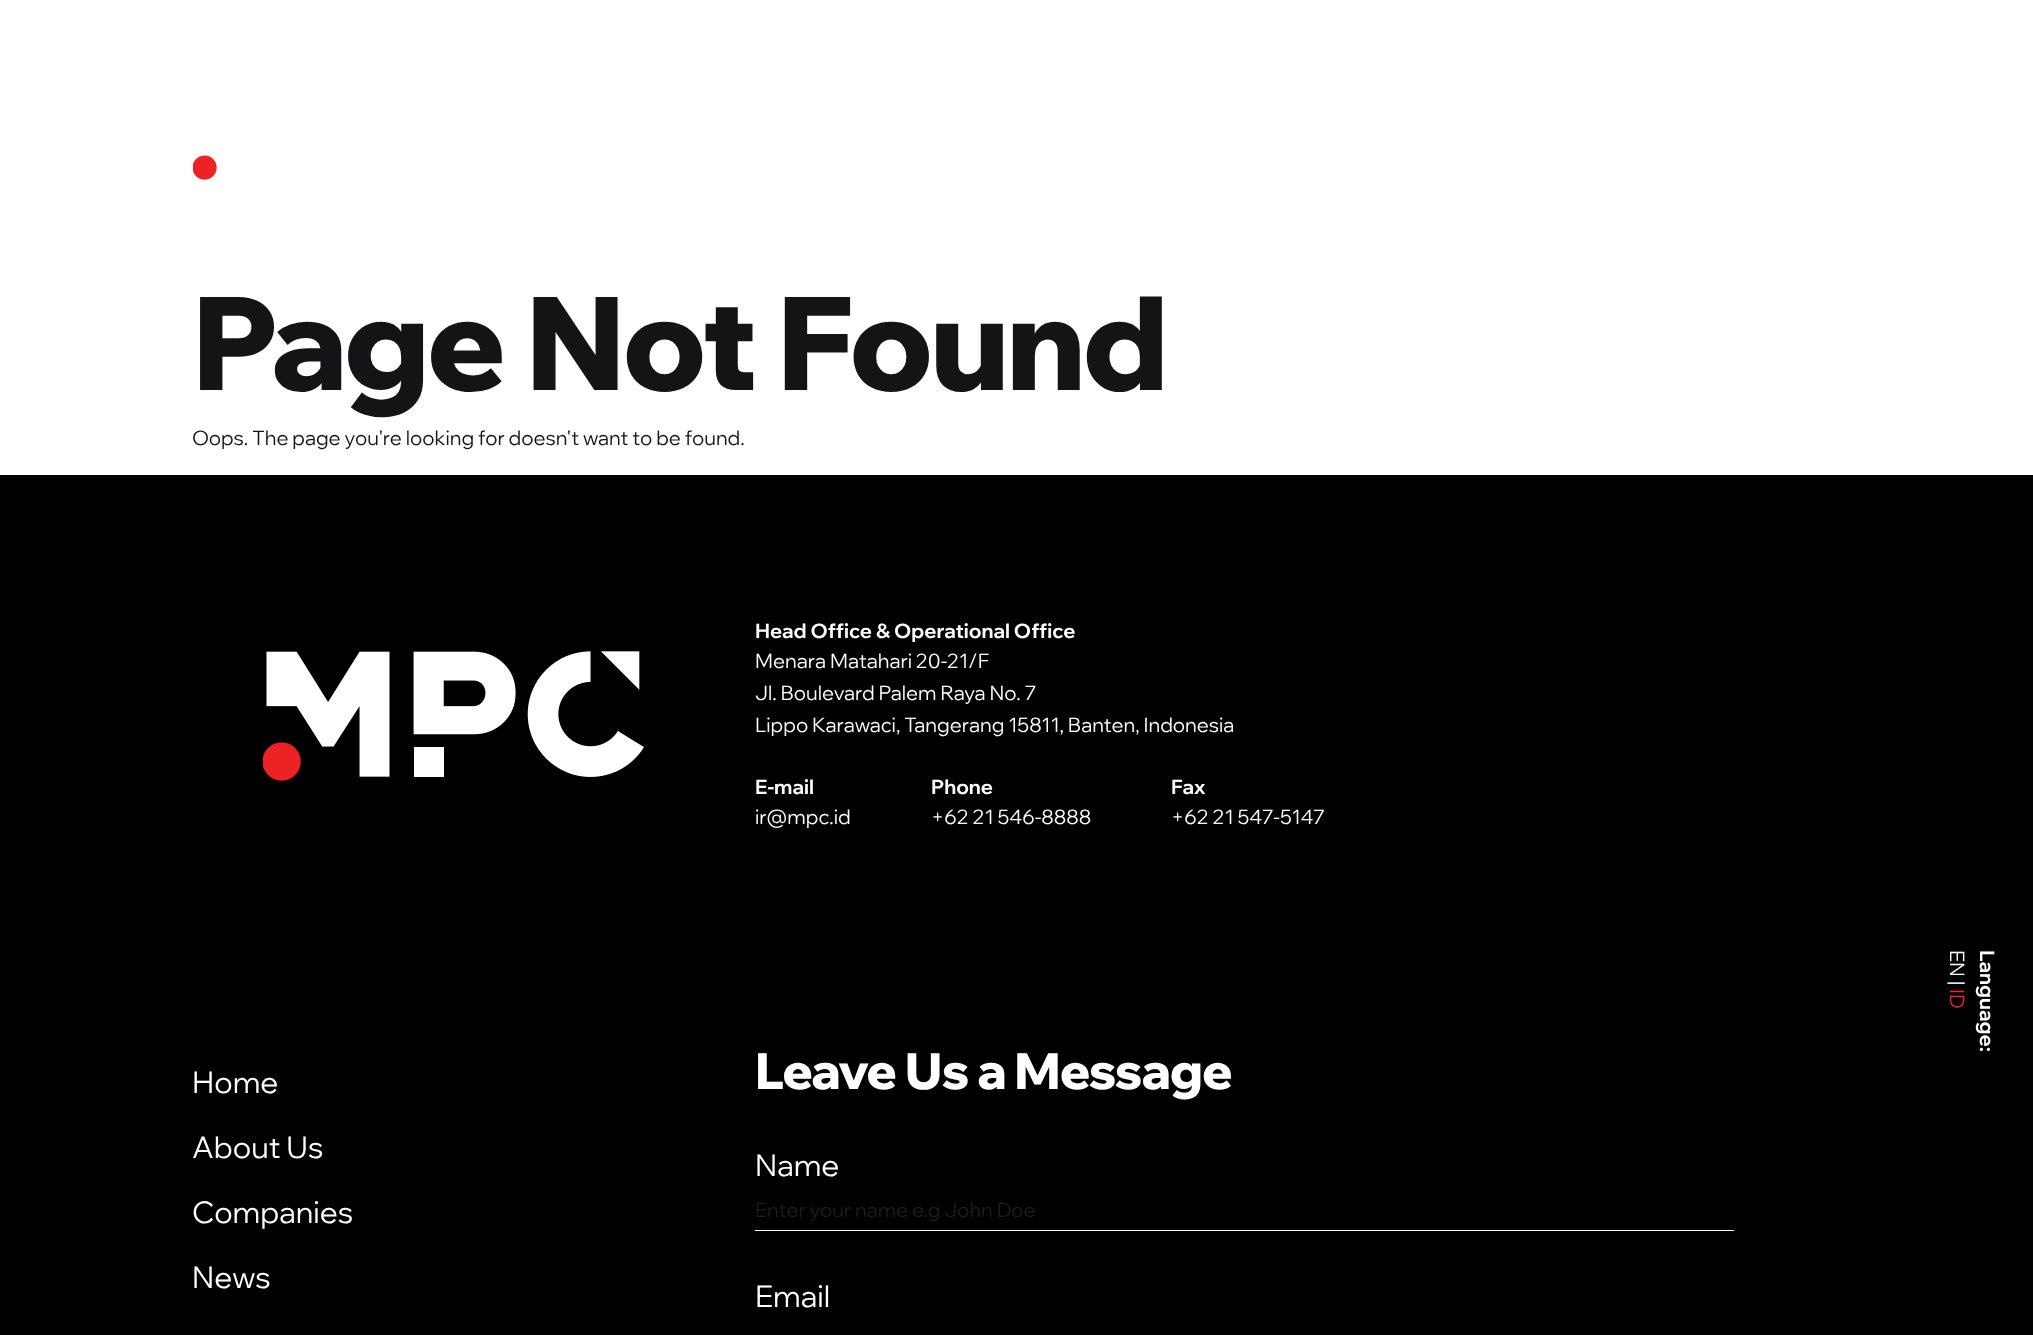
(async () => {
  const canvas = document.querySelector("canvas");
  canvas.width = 2033;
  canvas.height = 1335;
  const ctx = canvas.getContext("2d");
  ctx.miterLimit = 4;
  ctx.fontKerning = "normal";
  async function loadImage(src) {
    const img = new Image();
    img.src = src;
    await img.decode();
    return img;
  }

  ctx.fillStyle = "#ffffff";
  ctx.fillRect(0, 0, 2033, 1335);
  ctx.drawImage(await loadImage("img/1.png"), 193, 155, 24, 25);
  ctx.fillStyle = "#000000";
  ctx.fillRect(0, 475, 2033, 860);
  ctx.drawImage(await loadImage("img/2.png"), 263, 651, 381, 130);
  ctx.fillStyle = "#ffffff";
  ctx.fillRect(755, 1230, 979, 1);
  ctx.letterSpacing = "-3.25px";
  ctx.font = "800 130px Wix Madefor Display";
  ctx.fillStyle = "#121416";
  ctx.fillText("Page Not Found", 192, 390);
  ctx.letterSpacing = "0px";
  ctx.font = "20px Wix Madefor Display";
  ctx.fillText("Oops. The page you're looking for doesn't want to be found.", 192, 445);
  ctx.font = "bold 20px Wix Madefor Display";
  ctx.fillStyle = "#ffffff";
  ctx.fillText("Head Office & Operational Office", 755, 638);
  ctx.font = "20px Wix Madefor Display";
  for (const [text, x, y] of [
    ["Menara Matahari 20-21/F", 755, 668],
    ["Jl. Boulevard Palem Raya No. 7", 755, 700],
    ["Lippo Karawaci, Tangerang 15811, Banten, Indonesia", 755, 732],
  ]) {
    ctx.fillText(text, x, y);
  }
  ctx.font = "bold 20px Wix Madefor Display";
  ctx.fillText("E-mail", 755, 794);
  ctx.font = "20px Wix Madefor Display";
  ctx.fillText("ir@mpc.id", 755, 824);
  ctx.font = "bold 20px Wix Madefor Display";
  ctx.fillText("Phone", 931, 794);
  ctx.font = "20px Wix Madefor Display";
  ctx.fillText("+62 21 546-8888", 931, 824);
  ctx.font = "bold 20px Wix Madefor Display";
  ctx.fillText("Fax", 1171, 794);
  ctx.font = "20px Wix Madefor Display";
  ctx.fillText("+62 21 547-5147", 1171, 824);
  ctx.font = "30px Wix Madefor Display";
  for (const [text, x, y] of [
    ["Home", 192, 1093],
    ["About Us", 192, 1158],
    ["Companies", 192, 1223],
    ["News", 192, 1288],
  ]) {
    ctx.fillText(text, x, y);
  }
  ctx.letterSpacing = "-1px";
  ctx.font = "800 50px Wix Madefor Display";
  ctx.fillText("Leave Us a Message", 755, 1089);
  ctx.letterSpacing = "0px";
  ctx.font = "30px Wix Madefor Display";
  ctx.fillText("Name", 755, 1176);
  ctx.font = "20px Wix Madefor Display";
  ctx.fillStyle = "#1d1d1d";
  ctx.fillText("Enter your name e.g John Doe", 755, 1217);
  ctx.font = "30px Wix Madefor Display";
  ctx.fillStyle = "#ffffff";
  ctx.fillText("Email", 755, 1307);
  ctx.font = "20px Wix Madefor Display";
  ctx.save();
  ctx.translate(1950, 950);
  ctx.rotate(90 * Math.PI / 180);
  ctx.fillText("EN", 0, 0);
  ctx.restore();
  ctx.font = "bold 20px Wix Madefor Display";
  ctx.save();
  ctx.translate(1980, 950);
  ctx.rotate(90 * Math.PI / 180);
  ctx.fillText("Language:", 0, 0);
  ctx.restore();
  ctx.font = "20px Wix Madefor Display";
  ctx.save();
  ctx.translate(1950, 981);
  ctx.rotate(90 * Math.PI / 180);
  ctx.fillText("|", 0, 0);
  ctx.restore();
  ctx.fillStyle = "#e92828";
  ctx.save();
  ctx.translate(1950, 989);
  ctx.rotate(90 * Math.PI / 180);
  ctx.fillText("ID", 0, 0);
  ctx.restore();
})();
